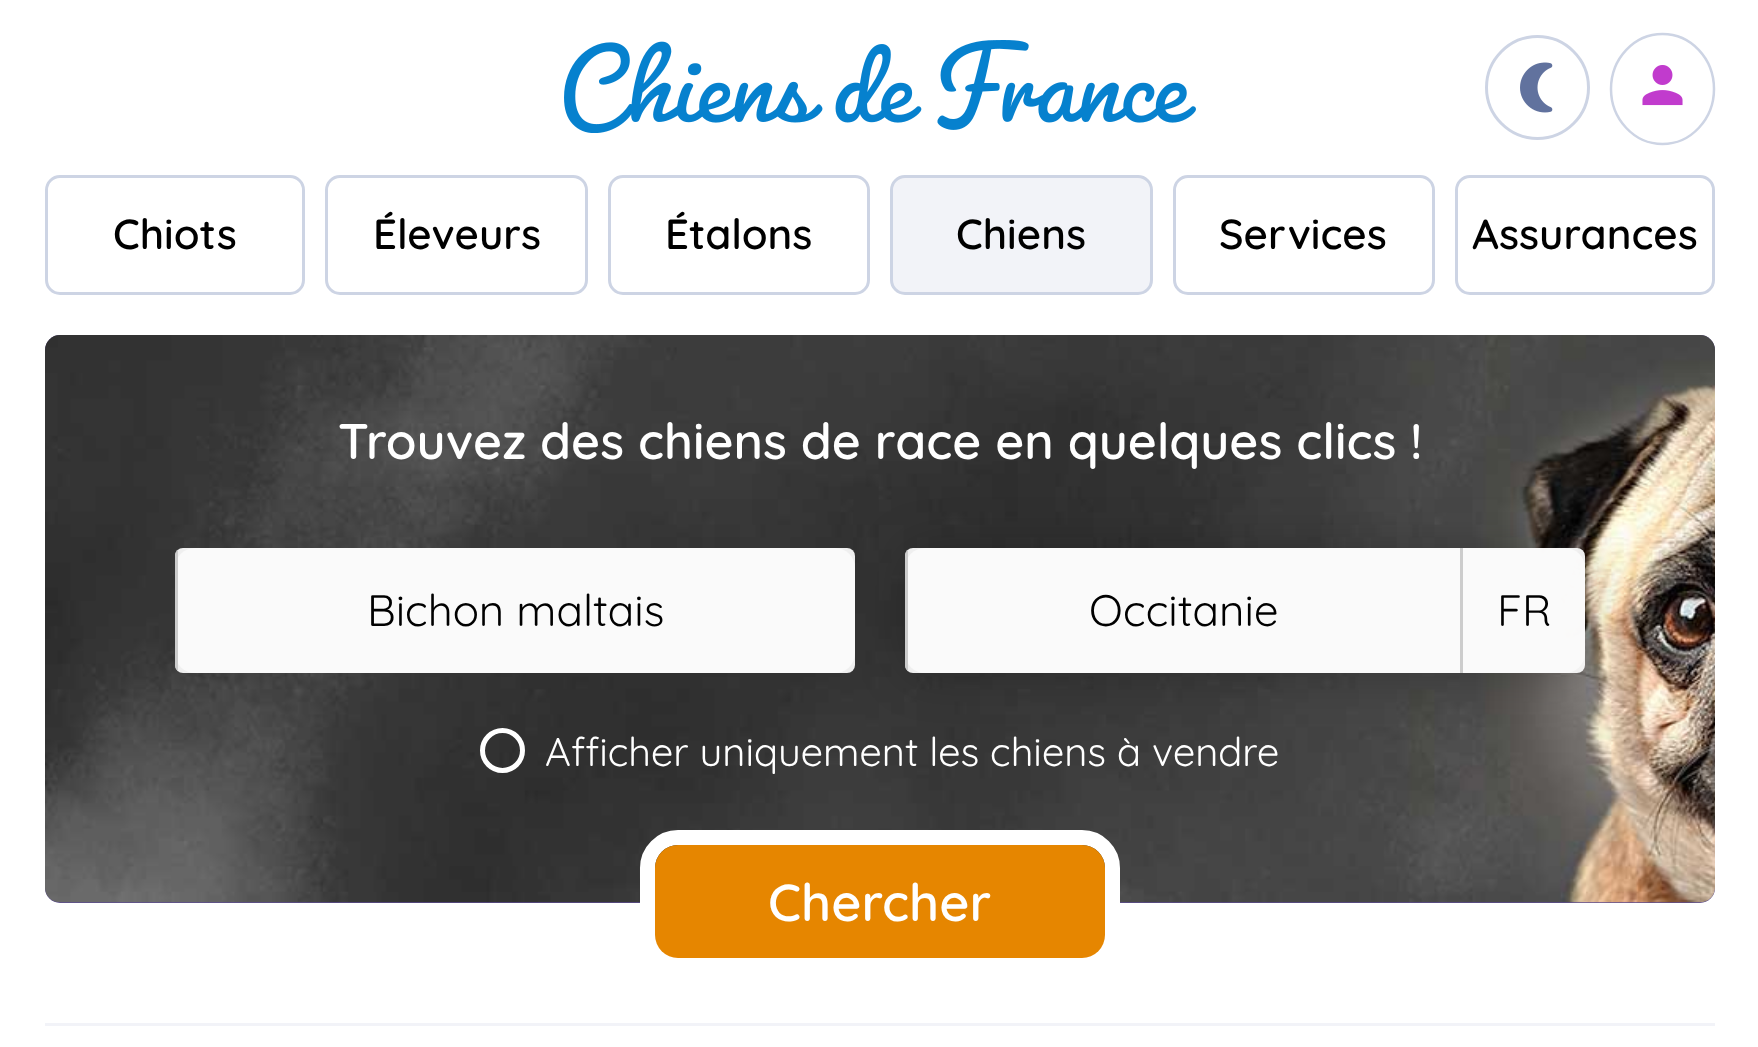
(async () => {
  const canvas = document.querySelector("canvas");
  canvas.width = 1758;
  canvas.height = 1047;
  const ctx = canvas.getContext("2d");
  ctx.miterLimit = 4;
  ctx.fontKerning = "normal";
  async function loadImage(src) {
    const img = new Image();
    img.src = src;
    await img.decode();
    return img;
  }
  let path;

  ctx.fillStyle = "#ffffff";
  ctx.fillRect(0, 0, 1758, 1047);
  ctx.drawImage(await loadImage("img/1.png"), 564, 40, 632, 93);
  ctx.beginPath();
  ctx.arc(1537.5, 87.5, 51, 0, Math.PI * 2);
  ctx.strokeStyle = "#cdd4e4";
  ctx.lineWidth = 3;
  ctx.stroke();
  ctx.drawImage(await loadImage("img/2.png"), 1520, 62, 33, 51);
  path = new Path2D("M1662.5 34C1691 34 1714 58.5 1714 89C1714 119 1691 144 1662.5 144C1634 144 1611 119 1611 89C1611 58.5 1634 34 1662.5 34Z");
  ctx.lineWidth = 2.5;
  ctx.stroke(path);
  ctx.drawImage(await loadImage("img/3.png"), 1642, 65, 41, 41);
  ctx.beginPath();
  ctx.roundRect(46.5, 176.5, 257, 117, 13.5);
  ctx.lineWidth = 3;
  ctx.stroke();
  ctx.beginPath();
  ctx.roundRect(326.5, 176.5, 260, 117, 13.5);
  ctx.stroke();
  ctx.beginPath();
  ctx.roundRect(609.5, 176.5, 259, 117, 13.5);
  ctx.stroke();
  ctx.fillStyle = "#f2f3f8";
  ctx.beginPath();
  ctx.roundRect(891.5, 176.5, 260, 117, 13.5);
  ctx.fill();
  ctx.stroke();
  ctx.beginPath();
  ctx.roundRect(1174.5, 176.5, 259, 117, 13.5);
  ctx.stroke();
  ctx.beginPath();
  ctx.roundRect(1456.5, 176.5, 257, 117, 13.5);
  ctx.stroke();
  ctx.fillStyle = "#5c4d92";
  ctx.beginPath();
  ctx.roundRect(45, 335, 1670, 568, 15);
  ctx.fill();
  ctx.drawImage(await loadImage("img/4.png"), 45, 335, 1670, 568);
  ctx.fillStyle = "rgba(250, 250, 250, 0.95)";
  ctx.beginPath();
  ctx.roundRect(175, 548, 680, 125, 20);
  ctx.fill();
  ctx.save();
  path = new Path2D("M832 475H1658V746H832ZM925 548H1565C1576 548 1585 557 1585 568V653C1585 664 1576 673 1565 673H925C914 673 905 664 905 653V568C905 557 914 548 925 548Z");
  ctx.clip(path, "evenodd");
  ctx.fillStyle = "rgba(0, 0, 0, 0.23)";
  ctx.filter = "blur(24px)";
  ctx.beginPath();
  ctx.roundRect(905, 548, 680, 125, 20);
  ctx.fill();
  ctx.filter = "none";
  ctx.restore();
  ctx.beginPath();
  ctx.roundRect(175, 548, 680, 125, 8);
  ctx.fill();
  ctx.save();
  ctx.beginPath();
  ctx.roundRect(175, 548, 680, 125, 8);
  ctx.clip();
  ctx.fillStyle = "#cccccc";
  ctx.fillRect(175, 548, 3, 125);
  ctx.restore();
  ctx.beginPath();
  ctx.roundRect(905, 548, 680, 125, 20);
  ctx.fill();
  ctx.beginPath();
  ctx.roundRect(905, 548, 555, 125, [8, 0, 0, 8]);
  ctx.fill();
  ctx.save();
  ctx.beginPath();
  ctx.roundRect(905, 548, 555, 125, [8, 0, 0, 8]);
  ctx.clip();
  ctx.fillStyle = "#cccccc";
  ctx.fillRect(905, 548, 3, 125);
  ctx.restore();
  ctx.beginPath();
  ctx.roundRect(1460, 548, 125, 125, [0, 8, 8, 0]);
  ctx.fill();
  ctx.fillStyle = "#cccccc";
  ctx.fillRect(1460, 548, 3, 125);
  ctx.beginPath();
  ctx.arc(502.5, 750.5, 20, 0, Math.PI * 2);
  ctx.strokeStyle = "#ffffff";
  ctx.lineWidth = 5;
  ctx.stroke();
  ctx.beginPath();
  ctx.roundRect(647.5, 837.5, 465, 128, 30.5);
  ctx.lineWidth = 15;
  ctx.stroke();
  ctx.fillStyle = "#e68600";
  ctx.beginPath();
  ctx.roundRect(655, 845, 450, 113, 23);
  ctx.fill();
  ctx.fillStyle = "#f2f3f8";
  ctx.fillRect(45, 1023, 1670, 3);
  ctx.font = "600 42px Quicksand";
  ctx.fillStyle = "#000000";
  for (const [text, x, y] of [
    ["Chiots", 113, 249],
    ["Éleveurs", 373, 249],
    ["Étalons", 665, 249],
    ["Chiens", 956, 249],
    ["Services", 1219, 249],
    ["Assurances", 1472, 249],
  ]) {
    ctx.fillText(text, x, y);
  }
  ctx.font = "600 50px Quicksand";
  ctx.fillStyle = "#ffffff";
  ctx.fillText("Trouvez des chiens de race en quelques clics !", 338, 459);
  ctx.font = "300 44px Quicksand";
  ctx.fillStyle = "#000000";
  for (const [text, x, y] of [
    ["Bichon maltais", 367, 626],
    ["Occitanie", 1089, 626],
    ["FR", 1497, 626],
  ]) {
    ctx.fillText(text, x, y);
  }
  ctx.font = "300 40px Quicksand";
  ctx.fillStyle = "#ffffff";
  ctx.fillText("Afficher uniquement les chiens à vendre", 545, 766);
  ctx.font = "600 52px Quicksand";
  ctx.fillText("Chercher", 768, 921);
})();
